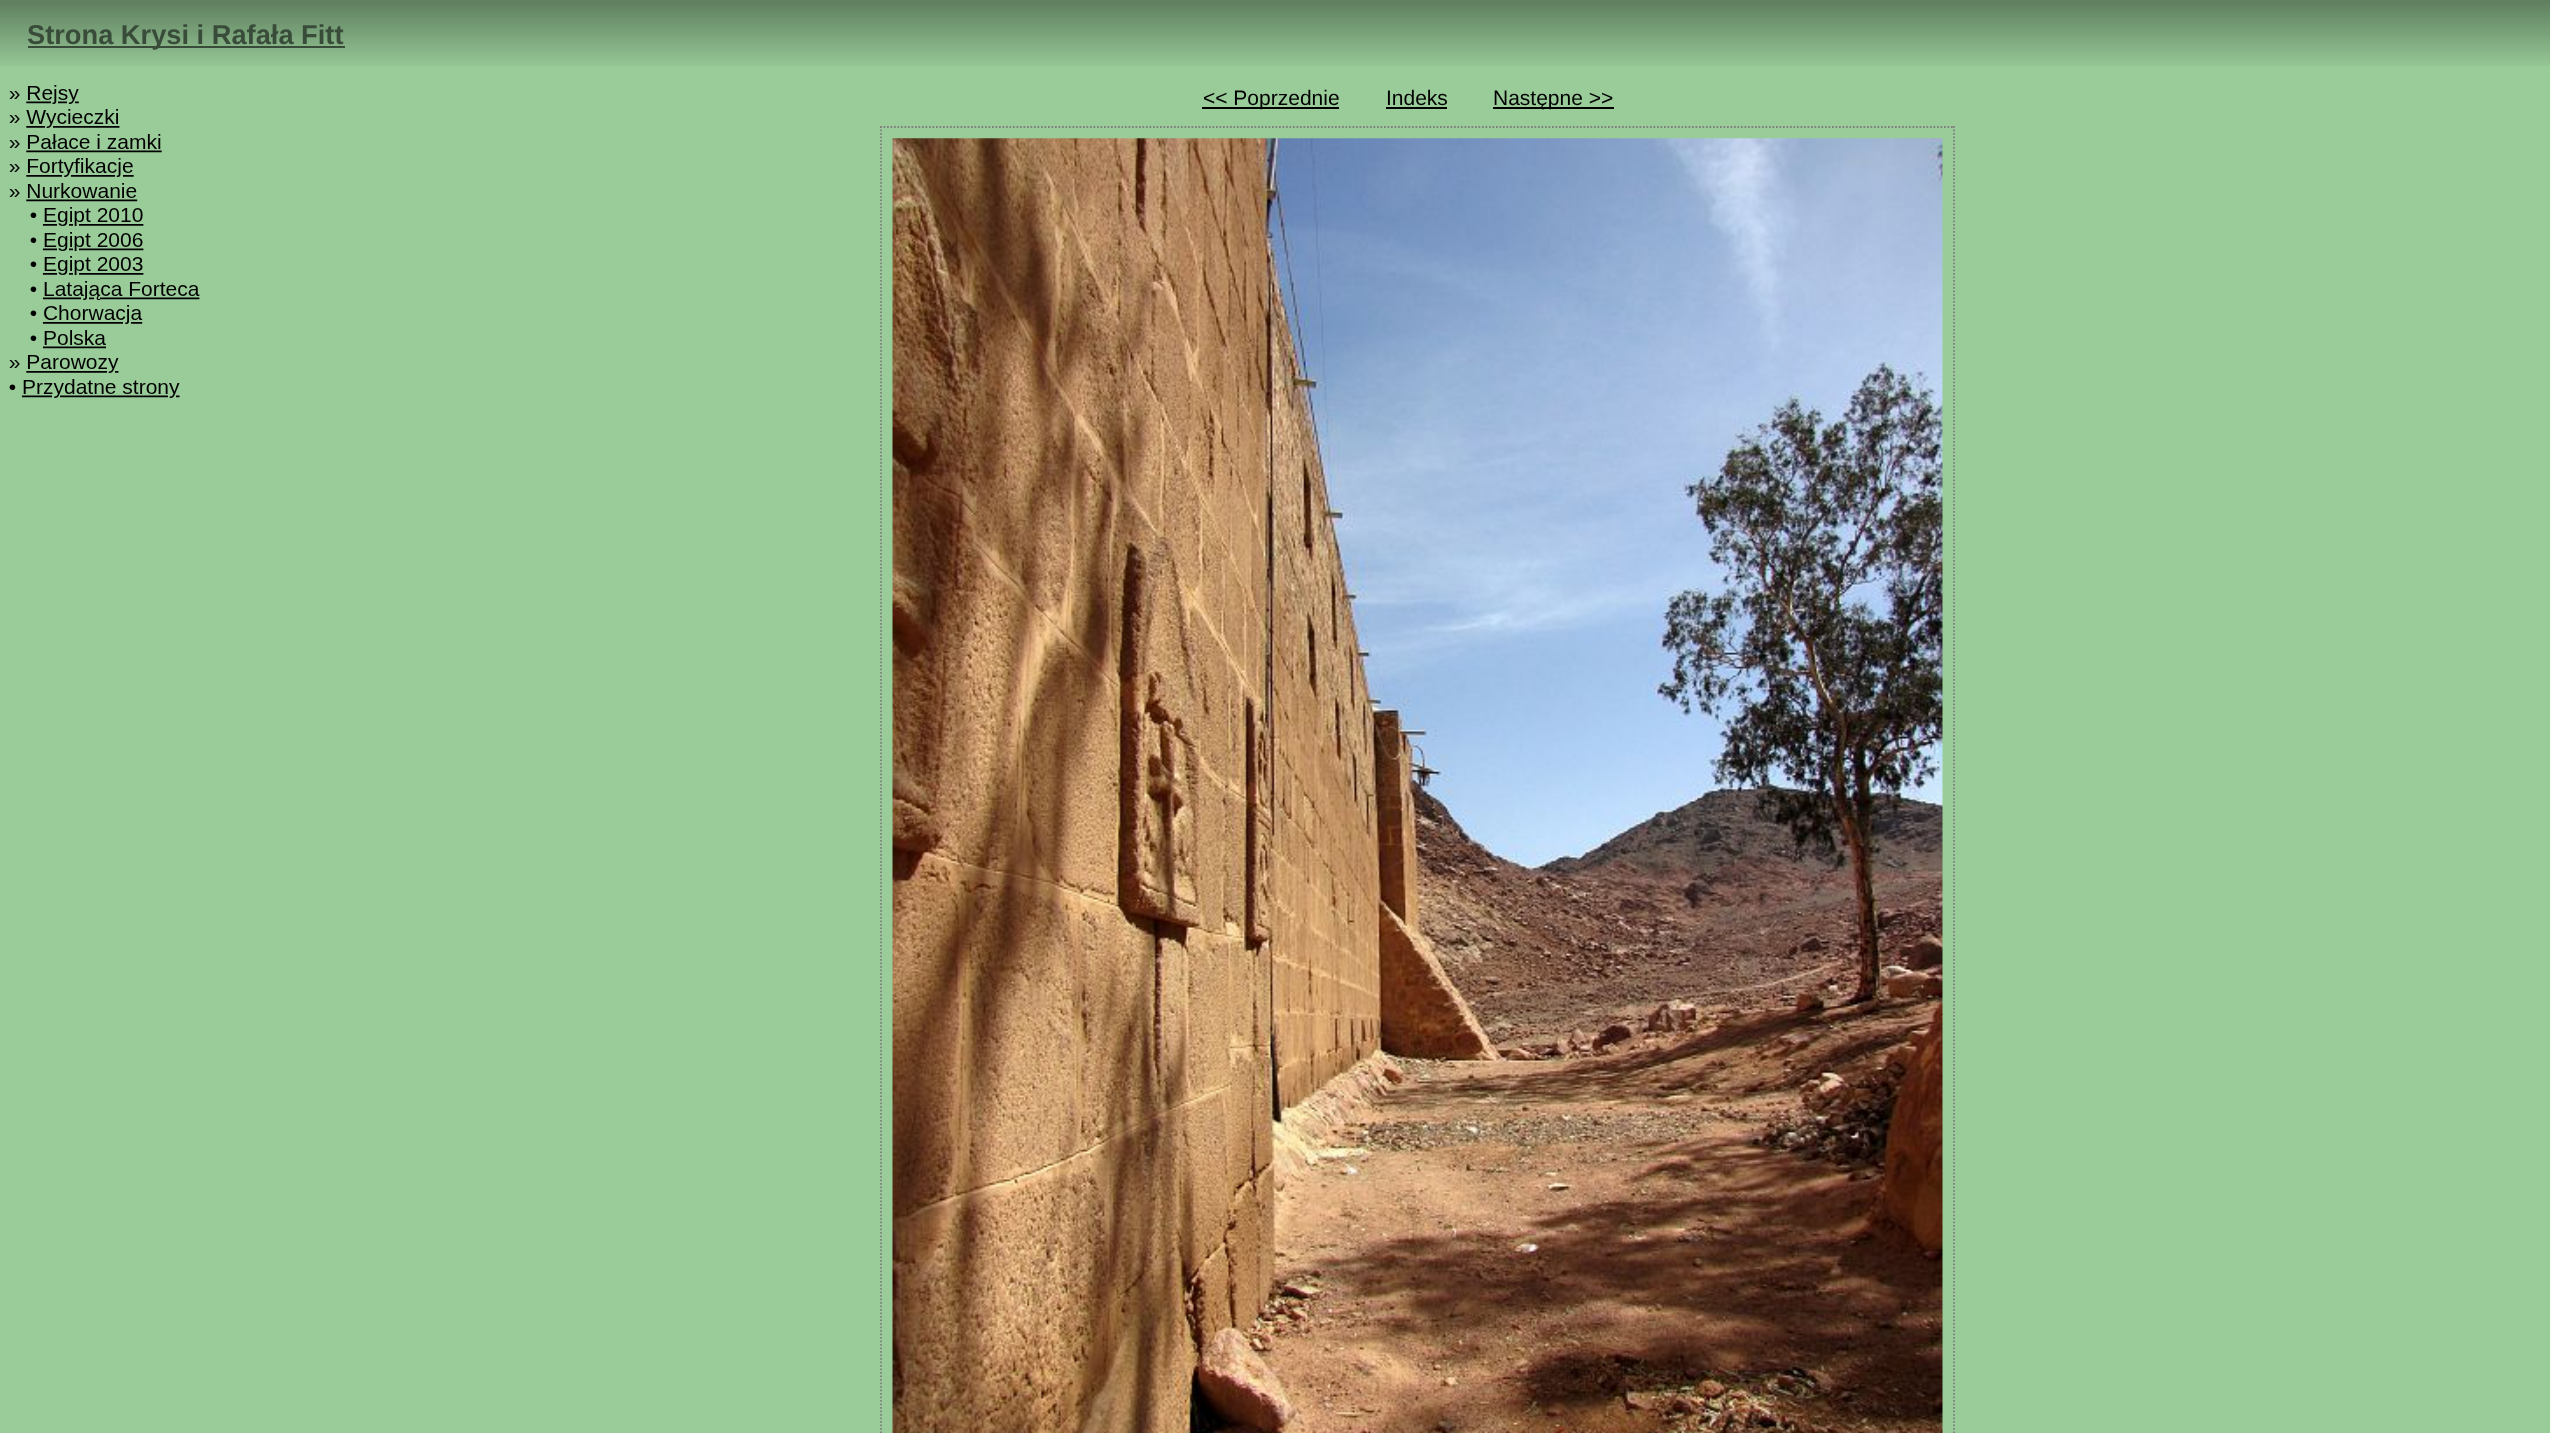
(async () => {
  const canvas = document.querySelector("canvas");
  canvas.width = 2550;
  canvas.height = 1433;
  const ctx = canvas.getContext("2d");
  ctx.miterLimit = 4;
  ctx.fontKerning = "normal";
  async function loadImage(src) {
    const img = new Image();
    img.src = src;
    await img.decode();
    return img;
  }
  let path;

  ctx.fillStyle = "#99cc99";
  ctx.fillRect(0, 0, 2550, 1433);
  ctx.drawImage(await loadImage("img/1.png"), 0, 0, 2550, 66);
  ctx.fillStyle = "#394c39";
  ctx.fillRect(28, 46, 317, 2);
  ctx.drawImage(await loadImage("img/2.png"), 9, 85, 191, 313);
  for (const [x, y, w, h, color] of [
    [1202, 107, 137, 2, "#000000"],
    [1386, 107, 61, 2, "#000000"],
    [1493, 107, 121, 2, "#000000"],
  ]) {
    ctx.fillStyle = color;
    ctx.fillRect(x, y, w, h);
  }
  path = new Path2D("M880 127H1955");
  ctx.strokeStyle = "#808080";
  ctx.lineWidth = 1.8;
  ctx.setLineDash([1.75, 1.75]);
  ctx.stroke(path);
  path = new Path2D("M881 126V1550.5");
  ctx.stroke(path);
  ctx.drawImage(await loadImage("img/3.png"), 892, 138, 1051, 1295);
  path = new Path2D("M1954 126V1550.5");
  ctx.stroke(path);
  ctx.font = "bold 27.25px Liberation Sans";
  ctx.fillStyle = "#394c39";
  ctx.fillText("Strona Krysi i Rafała Fitt", 27, 44);
  ctx.font = "21px Liberation Sans";
  ctx.fillStyle = "#000000";
  for (const [text, x, y] of [
    ["<< Poprzednie", 1203, 105],
    ["Indeks", 1386, 105],
    ["Następne >>", 1493, 105],
  ]) {
    ctx.fillText(text, x, y);
  }
})();
